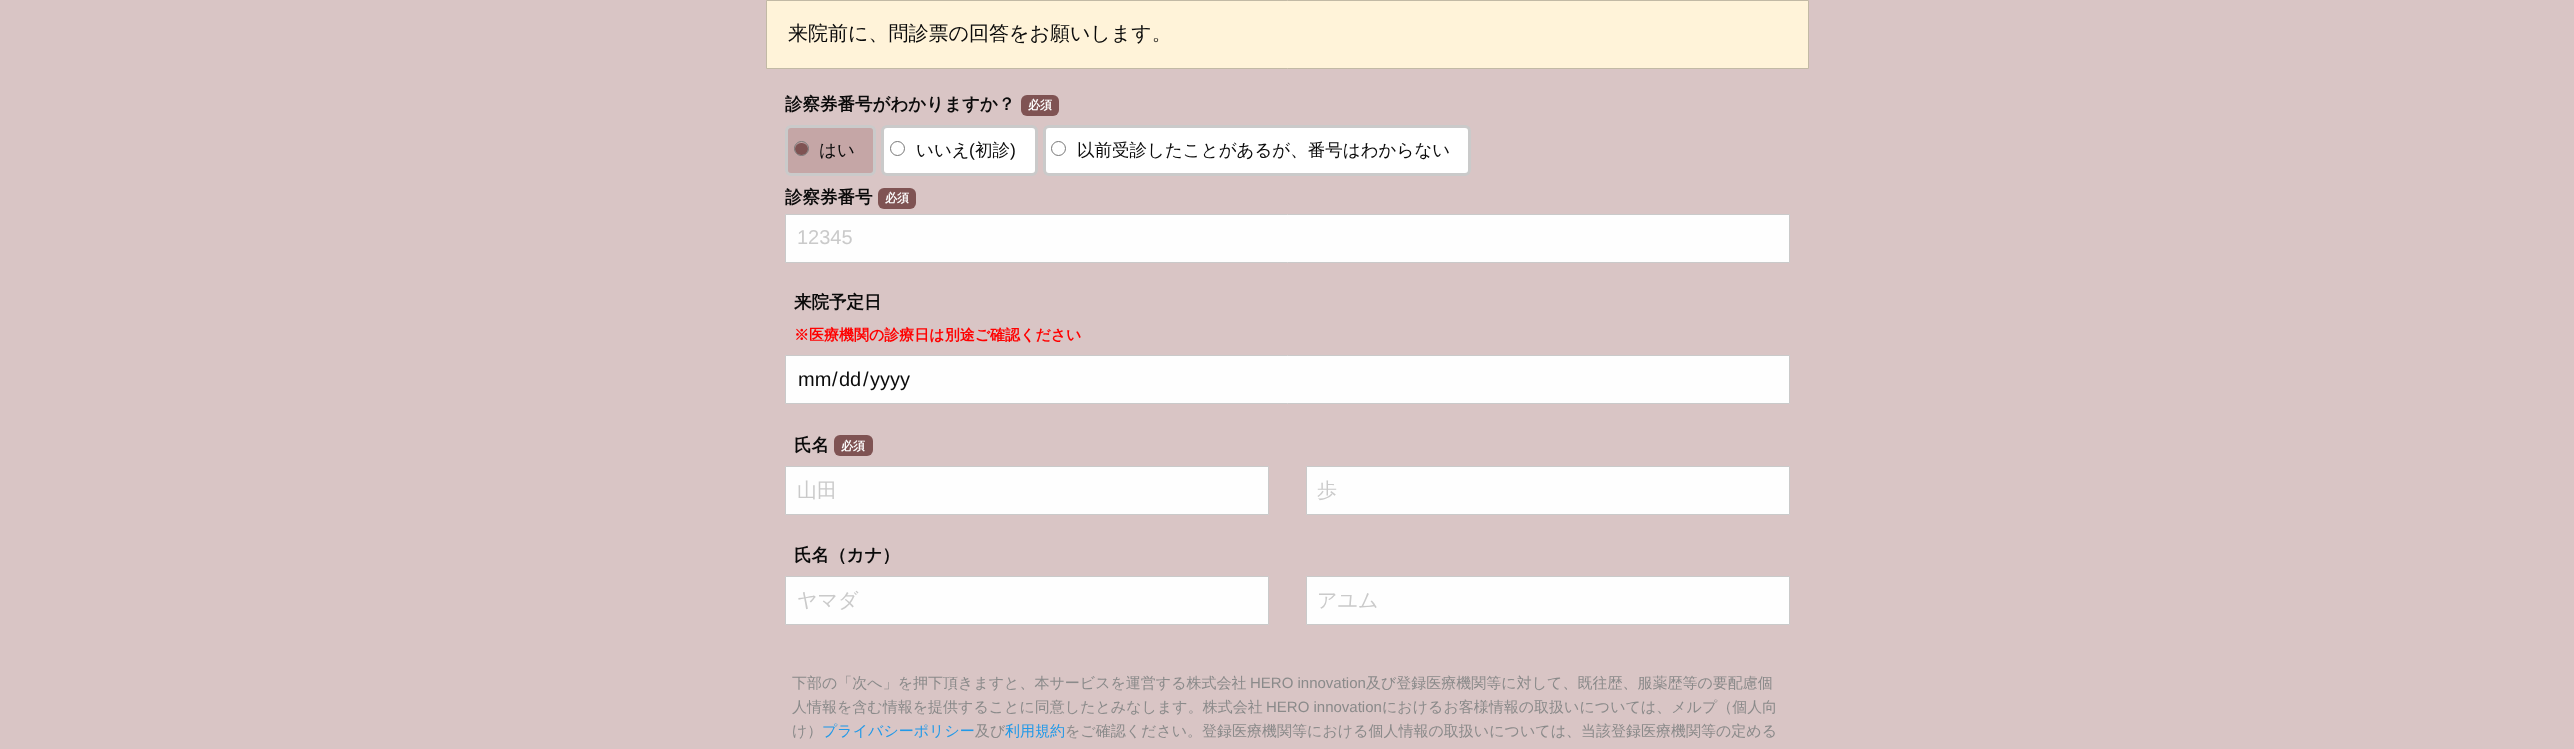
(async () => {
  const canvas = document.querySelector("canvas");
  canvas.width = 2574;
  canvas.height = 749;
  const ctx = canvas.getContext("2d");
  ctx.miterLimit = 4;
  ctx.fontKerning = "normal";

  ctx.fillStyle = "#d9c5c5";
  ctx.fillRect(0, 0, 2574, 749);
  ctx.fillStyle = "#fff3d9";
  ctx.beginPath();
  ctx.rect(766.5, 0.5, 1042, 68);
  ctx.fill();
  ctx.strokeStyle = "#c2b9a5";
  ctx.stroke();
  ctx.fillStyle = "#7f5353";
  ctx.beginPath();
  ctx.roundRect(1021, 95, 38, 21, 6);
  ctx.fill();
  ctx.fillStyle = "#c5a6a6";
  ctx.beginPath();
  ctx.roundRect(786.5, 126.5, 88, 48, 4.5);
  ctx.fill();
  ctx.strokeStyle = "#cacaca";
  ctx.lineWidth = 3;
  ctx.stroke();
  ctx.fillStyle = "#7f5353";
  ctx.beginPath();
  ctx.roundRect(795, 143, 13, 12, 6);
  ctx.fill();
  ctx.beginPath();
  ctx.arc(801.5, 148.5, 7, 0, Math.PI * 2);
  ctx.strokeStyle = "#777777";
  ctx.lineWidth = 1;
  ctx.stroke();
  ctx.fillStyle = "#ffffff";
  ctx.beginPath();
  ctx.roundRect(882.5, 126.5, 154, 48, 4.5);
  ctx.fill();
  ctx.strokeStyle = "#cacaca";
  ctx.lineWidth = 3;
  ctx.stroke();
  ctx.beginPath();
  ctx.arc(897.5, 148.5, 7, 0, Math.PI * 2);
  ctx.strokeStyle = "#777777";
  ctx.lineWidth = 1;
  ctx.stroke();
  ctx.beginPath();
  ctx.roundRect(1044.5, 126.5, 425, 48, 4.5);
  ctx.fill();
  ctx.strokeStyle = "#cacaca";
  ctx.lineWidth = 3;
  ctx.stroke();
  ctx.beginPath();
  ctx.arc(1058.5, 148.5, 7, 0, Math.PI * 2);
  ctx.strokeStyle = "#777777";
  ctx.lineWidth = 1;
  ctx.stroke();
  ctx.fillStyle = "#7f5353";
  ctx.beginPath();
  ctx.roundRect(878, 188, 38, 21, 6);
  ctx.fill();
  ctx.fillStyle = "#fefefe";
  ctx.beginPath();
  ctx.rect(785.5, 214.5, 1004, 48);
  ctx.fill();
  ctx.strokeStyle = "#cacaca";
  ctx.stroke();
  ctx.beginPath();
  ctx.rect(785.5, 355.5, 1004, 48);
  ctx.fill();
  ctx.stroke();
  ctx.fillStyle = "#7f5353";
  ctx.beginPath();
  ctx.roundRect(834, 435, 39, 21, 6);
  ctx.fill();
  ctx.fillStyle = "#fefefe";
  ctx.beginPath();
  ctx.rect(785.5, 466.5, 483, 48);
  ctx.fill();
  ctx.stroke();
  ctx.beginPath();
  ctx.rect(1306.5, 466.5, 483, 48);
  ctx.fill();
  ctx.stroke();
  ctx.beginPath();
  ctx.rect(785.5, 576.5, 483, 48);
  ctx.fill();
  ctx.stroke();
  ctx.beginPath();
  ctx.rect(1306.5, 576.5, 483, 48);
  ctx.fill();
  ctx.stroke();
  ctx.font = "500 20px WenQuanYi Zen Hei";
  ctx.fillStyle = "#0a0a0a";
  ctx.fillText("来院前に、問診票の回答をお願いします。", 788, 40);
  ctx.font = "bold 17.5px WenQuanYi Zen Hei";
  ctx.fillText("診察券番号がわかりますか？", 785, 110);
  ctx.font = "bold 12px WenQuanYi Zen Hei";
  ctx.fillStyle = "#fefefe";
  ctx.fillText("必須", 1028, 109);
  ctx.font = "500 17.5px WenQuanYi Zen Hei";
  ctx.fillStyle = "#0a0a0a";
  ctx.fillText("はい", 819, 156);
  ctx.fillText("いいえ", 916, 156);
  ctx.font = "17.5px Liberation Sans";
  ctx.fillText("(", 969, 156);
  ctx.font = "500 17.5px WenQuanYi Zen Hei";
  ctx.fillText("初診", 975, 156);
  ctx.font = "17.5px Liberation Sans";
  ctx.fillText(")", 1010, 156);
  ctx.font = "500 17.5px WenQuanYi Zen Hei";
  ctx.fillText("以前受診したことがあるが、番号はわからない", 1077, 156);
  ctx.font = "bold 17.5px WenQuanYi Zen Hei";
  ctx.fillText("診察券番号", 785, 203);
  ctx.font = "bold 12px WenQuanYi Zen Hei";
  ctx.fillStyle = "#fefefe";
  ctx.fillText("必須", 885, 202);
  ctx.font = "20px Liberation Sans";
  ctx.fillStyle = "#cacaca";
  ctx.fillText("12345", 797, 244);
  ctx.font = "bold 17.5px WenQuanYi Zen Hei";
  ctx.fillStyle = "#0a0a0a";
  ctx.fillText("来院予定日", 794, 308);
  ctx.font = "bold 15px WenQuanYi Zen Hei";
  ctx.fillStyle = "#ff0000";
  ctx.fillText("※医療機関の診療日は別途ご確認ください", 794, 340);
  ctx.font = "20px Liberation Sans";
  ctx.fillStyle = "#0a0a0a";
  for (const [text, x, y] of [
    ["mm", 798, 386],
    ["/", 832, 386],
    ["dd", 839, 386],
    ["/", 863, 386],
    ["yyyy", 870, 386],
  ]) {
    ctx.fillText(text, x, y);
  }
  ctx.font = "bold 17.5px WenQuanYi Zen Hei";
  ctx.fillText("氏名", 794, 451);
  ctx.font = "bold 12px WenQuanYi Zen Hei";
  ctx.fillStyle = "#fefefe";
  ctx.fillText("必須", 841, 450);
  ctx.font = "500 20px WenQuanYi Zen Hei";
  ctx.fillStyle = "#cacaca";
  ctx.fillText("山田", 797, 497);
  ctx.fillText("歩", 1317, 497);
  ctx.font = "bold 17.5px WenQuanYi Zen Hei";
  ctx.fillStyle = "#0a0a0a";
  ctx.fillText("氏名（カナ）", 794, 561);
  ctx.font = "500 20px WenQuanYi Zen Hei";
  ctx.fillStyle = "#cacaca";
  ctx.fillText("ヤマダ", 797, 607);
  ctx.fillText("アユム", 1317, 607);
  ctx.font = "500 15px WenQuanYi Zen Hei";
  ctx.fillStyle = "#8a8a8a";
  ctx.fillText("下部の「次へ」を押下頂きますと、本サービスを運営する株式会社", 792, 688);
  ctx.font = "15px Liberation Sans";
  ctx.fillText("HERO innovation", 1250, 688);
  ctx.font = "500 15px WenQuanYi Zen Hei";
  ctx.fillText("及び登録医療機関等に対して、既往歴、服薬歴等の要配慮個", 1366, 688);
  ctx.fillText("人情報を含む情報を提供することに同意したとみなします。株式会社", 792, 712);
  ctx.font = "15px Liberation Sans";
  ctx.fillText("HERO innovation", 1266, 712);
  ctx.font = "500 15px WenQuanYi Zen Hei";
  ctx.fillText("におけるお客様情報の取扱いについては、メルプ（個人向", 1382, 712);
  ctx.fillText("け）", 792, 736);
  ctx.fillStyle = "#2199e8";
  ctx.fillText("プライバシーポリシー", 822, 736);
  ctx.fillStyle = "#8a8a8a";
  ctx.fillText("及び", 975, 736);
  ctx.fillStyle = "#2199e8";
  ctx.fillText("利用規約", 1005, 736);
  ctx.fillStyle = "#8a8a8a";
  ctx.fillText("をご確認ください。登録医療機関等における個人情報の取扱いについては、当該登録医療機関等の定める", 1065, 736);
})();
